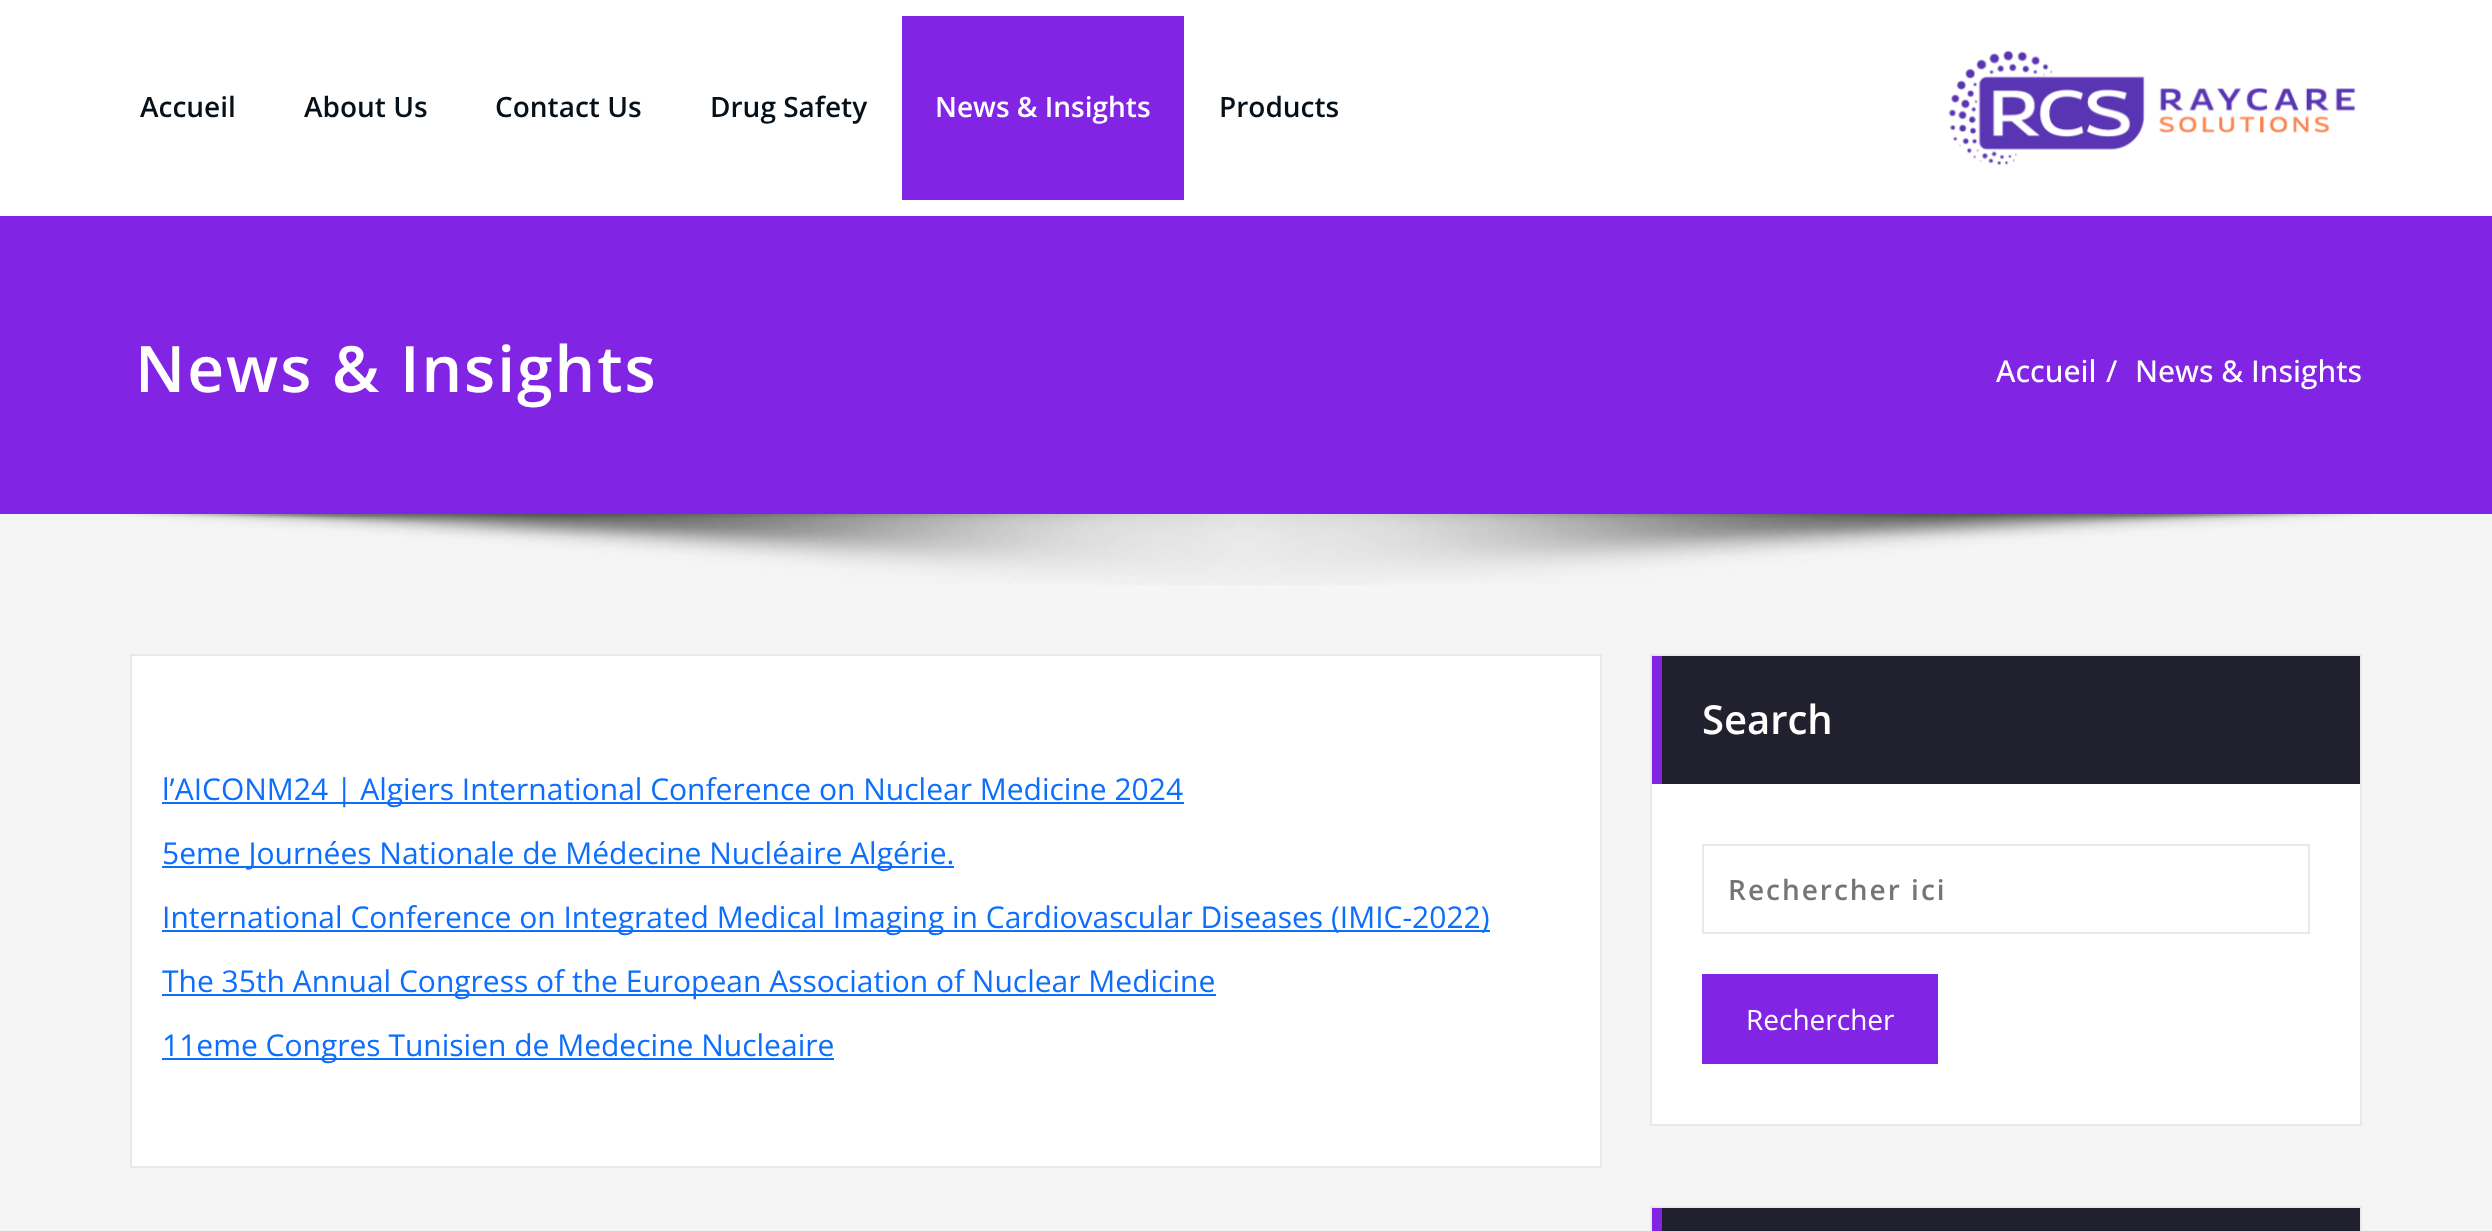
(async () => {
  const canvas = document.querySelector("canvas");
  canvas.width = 2492;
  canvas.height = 1231;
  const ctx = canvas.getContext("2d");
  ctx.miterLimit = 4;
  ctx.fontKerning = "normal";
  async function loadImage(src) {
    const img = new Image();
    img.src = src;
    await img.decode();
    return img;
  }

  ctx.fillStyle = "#f5f5f5";
  ctx.fillRect(0, 0, 2492, 1231);
  ctx.fillStyle = "#ffffff";
  ctx.fillRect(0, 0, 2492, 216);
  ctx.fillStyle = "#8224e3";
  ctx.fillRect(902, 16, 282, 184);
  ctx.drawImage(await loadImage("img/1.png"), 1948, 50, 408, 116);
  ctx.fillRect(0, 216, 2492, 298);
  ctx.drawImage(await loadImage("img/2.png"), 119, 514, 2252, 71);
  ctx.fillStyle = "#ffffff";
  ctx.beginPath();
  ctx.rect(131, 655, 1470, 512);
  ctx.fill();
  ctx.strokeStyle = "#e9e9e9";
  ctx.lineWidth = 2;
  ctx.stroke();
  for (const [x, y, w, h, color] of [
    [162, 802, 1022, 2, "#0d6efd"],
    [162, 866, 792, 2, "#0d6efd"],
    [162, 930, 1328, 2, "#0d6efd"],
    [162, 994, 1054, 2, "#0d6efd"],
    [162, 1058, 672, 2, "#0d6efd"],
    [1652, 784, 708, 340, "#ffffff"],
  ]) {
    ctx.fillStyle = color;
    ctx.fillRect(x, y, w, h);
  }
  ctx.strokeRect(1651, 655, 710, 470);
  ctx.fillStyle = "#21202e";
  ctx.fillRect(1662, 656, 698, 128);
  ctx.fillStyle = "#8224e3";
  ctx.fillRect(1652, 656, 10, 128);
  ctx.strokeRect(1703, 845, 606, 88);
  ctx.fillRect(1702, 974, 236, 90);
  ctx.strokeRect(1651, 1207, 710, 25);
  ctx.fillStyle = "#21202e";
  ctx.fillRect(1662, 1208, 698, 23);
  ctx.fillStyle = "#8224e3";
  ctx.fillRect(1652, 1208, 10, 23);
  ctx.font = "600 28px Open Sans";
  ctx.fillStyle = "#061018";
  for (const [text, x, y] of [
    ["Accueil", 140, 117],
    ["About Us", 304, 117],
    ["Contact Us", 495, 117],
    ["Drug Safety", 710, 117],
  ]) {
    ctx.fillText(text, x, y);
  }
  ctx.fillStyle = "#ffffff";
  ctx.fillText("News & Insights", 935, 117);
  ctx.fillStyle = "#061018";
  ctx.fillText("Products", 1219, 117);
  ctx.letterSpacing = "2px";
  ctx.font = "600 64px Open Sans";
  ctx.fillStyle = "#ffffff";
  ctx.fillText("News & Insights", 135, 392);
  ctx.letterSpacing = "0px";
  ctx.font = "500 30px Open Sans";
  for (const [text, x, y] of [
    ["Accueil", 1996, 382],
    ["/", 2106, 382],
    ["News & Insights", 2135, 382],
  ]) {
    ctx.fillText(text, x, y);
  }
  ctx.font = "30px Open Sans";
  ctx.fillStyle = "#0d6efd";
  for (const [text, x, y] of [
    ["l’AICONM24 | Algiers International Conference on Nuclear Medicine 2024", 162, 800],
    ["5eme Journées Nationale de Médecine Nucléaire Algérie.", 162, 864],
    ["International Conference on Integrated Medical Imaging in Cardiovascular Diseases (IMIC-2022)", 162, 928],
    ["The 35th Annual Congress of the European Association of Nuclear Medicine", 162, 992],
    ["11eme Congres Tunisien de Medecine Nucleaire", 162, 1056],
  ]) {
    ctx.fillText(text, x, y);
  }
  ctx.font = "600 40px Open Sans";
  ctx.fillStyle = "#ffffff";
  ctx.fillText("Search", 1702, 734);
  ctx.letterSpacing = "2px";
  ctx.font = "600 28px Open Sans";
  ctx.fillStyle = "#757575";
  ctx.fillText("Rechercher ici", 1728, 900);
  ctx.letterSpacing = "0px";
  ctx.font = "28px Open Sans";
  ctx.fillStyle = "#ffffff";
  ctx.fillText("Rechercher", 1746, 1030);
})();
